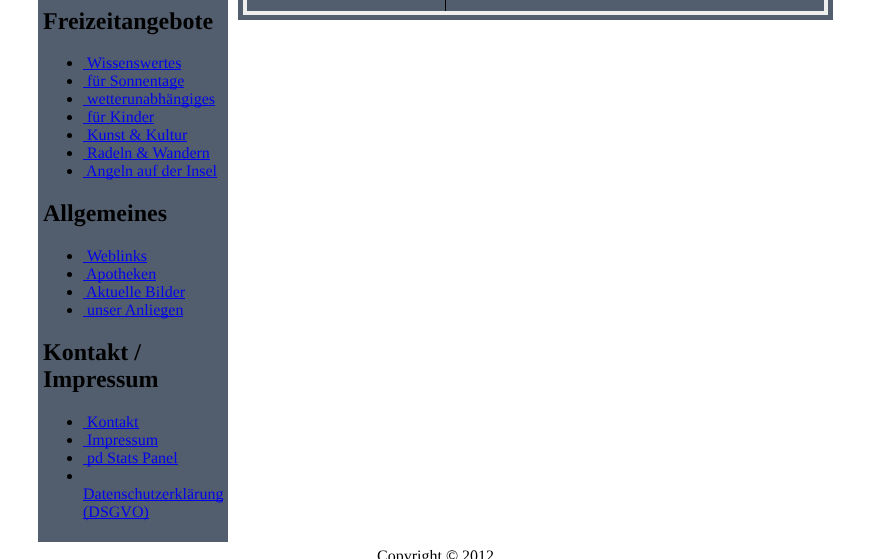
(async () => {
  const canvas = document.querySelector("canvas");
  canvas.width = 870;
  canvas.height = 559;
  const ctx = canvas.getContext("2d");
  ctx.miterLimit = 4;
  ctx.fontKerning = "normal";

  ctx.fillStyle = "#ffffff";
  ctx.fillRect(0, 0, 870, 559);
  for (const [x, y, w, h, color] of [
    [238, 0, 595, 20, "#525e6e"],
    [824, 0, 4, 15, "#eeeeee"],
    [445, 0, 1, 14, "#000000"],
    [243, 11, 585, 4, "#eeeeee"],
    [243, 0, 4, 15, "#eeeeee"],
    [38, 0, 190, 542, "#525e6e"],
  ]) {
    ctx.fillStyle = color;
    ctx.fillRect(x, y, w, h);
  }
  ctx.fillStyle = "#000000";
  ctx.beginPath();
  ctx.arc(69.5, 63.5, 2.5, 0, Math.PI * 2);
  ctx.fill();
  ctx.fillStyle = "#0000ee";
  ctx.fillRect(83, 69, 98, 1);
  ctx.fillStyle = "#000000";
  ctx.beginPath();
  ctx.arc(69.5, 81.5, 2.5, 0, Math.PI * 2);
  ctx.fill();
  ctx.fillStyle = "#0000ee";
  ctx.fillRect(83, 87, 101, 1);
  ctx.fillStyle = "#000000";
  ctx.beginPath();
  ctx.arc(69.5, 99.5, 2.5, 0, Math.PI * 2);
  ctx.fill();
  ctx.fillStyle = "#0000ee";
  ctx.fillRect(83, 105, 132, 1);
  ctx.fillStyle = "#000000";
  ctx.beginPath();
  ctx.arc(69.5, 117.5, 2.5, 0, Math.PI * 2);
  ctx.fill();
  ctx.fillStyle = "#0000ee";
  ctx.fillRect(83, 123, 71, 1);
  ctx.fillStyle = "#000000";
  ctx.beginPath();
  ctx.arc(69.5, 135.5, 2.5, 0, Math.PI * 2);
  ctx.fill();
  ctx.fillStyle = "#0000ee";
  ctx.fillRect(83, 141, 104, 1);
  ctx.fillStyle = "#000000";
  ctx.beginPath();
  ctx.arc(69.5, 153.5, 2.5, 0, Math.PI * 2);
  ctx.fill();
  ctx.fillStyle = "#0000ee";
  ctx.fillRect(83, 159, 127, 1);
  ctx.fillStyle = "#000000";
  ctx.beginPath();
  ctx.arc(69.5, 171.5, 2.5, 0, Math.PI * 2);
  ctx.fill();
  ctx.fillStyle = "#0000ee";
  ctx.fillRect(83, 177, 134, 1);
  ctx.fillStyle = "#000000";
  ctx.beginPath();
  ctx.arc(69.5, 256.5, 2.5, 0, Math.PI * 2);
  ctx.fill();
  ctx.fillStyle = "#0000ee";
  ctx.fillRect(83, 262, 64, 1);
  ctx.fillStyle = "#000000";
  ctx.beginPath();
  ctx.arc(69.5, 274.5, 2.5, 0, Math.PI * 2);
  ctx.fill();
  ctx.fillStyle = "#0000ee";
  ctx.fillRect(83, 280, 73, 1);
  ctx.fillStyle = "#000000";
  ctx.beginPath();
  ctx.arc(69.5, 292.5, 2.5, 0, Math.PI * 2);
  ctx.fill();
  ctx.fillStyle = "#0000ee";
  ctx.fillRect(83, 298, 102, 1);
  ctx.fillStyle = "#000000";
  ctx.beginPath();
  ctx.arc(69.5, 310.5, 2.5, 0, Math.PI * 2);
  ctx.fill();
  ctx.fillStyle = "#0000ee";
  ctx.fillRect(83, 316, 100, 1);
  ctx.fillStyle = "#000000";
  ctx.beginPath();
  ctx.arc(69.5, 422.5, 2.5, 0, Math.PI * 2);
  ctx.fill();
  ctx.fillStyle = "#0000ee";
  ctx.fillRect(83, 428, 56, 1);
  ctx.fillStyle = "#000000";
  ctx.beginPath();
  ctx.arc(69.5, 440.5, 2.5, 0, Math.PI * 2);
  ctx.fill();
  ctx.fillStyle = "#0000ee";
  ctx.fillRect(83, 446, 75, 1);
  ctx.fillStyle = "#000000";
  ctx.beginPath();
  ctx.arc(69.5, 458.5, 2.5, 0, Math.PI * 2);
  ctx.fill();
  ctx.fillStyle = "#0000ee";
  ctx.fillRect(83, 464, 95, 1);
  ctx.fillStyle = "#000000";
  ctx.beginPath();
  ctx.arc(69.5, 476.5, 2.5, 0, Math.PI * 2);
  ctx.fill();
  ctx.fillStyle = "#0000ee";
  ctx.fillRect(83, 500, 140, 1);
  ctx.fillRect(83, 518, 66, 1);
  ctx.font = "bold 24px Liberation Serif";
  ctx.fillStyle = "#000000";
  ctx.fillText("Freizeitangebote", 43, 29);
  ctx.font = "16px Liberation Serif";
  ctx.fillStyle = "#0000ee";
  for (const [text, x, y] of [
    ["Wissenswertes", 87, 68],
    ["für Sonnentage", 87, 86],
    ["wetterunabhängiges", 87, 104],
    ["für Kinder", 87, 122],
    ["Kunst & Kultur", 87, 140],
    ["Radeln & Wandern", 87, 158],
    ["Angeln auf der Insel", 86, 176],
  ]) {
    ctx.fillText(text, x, y);
  }
  ctx.font = "bold 24px Liberation Serif";
  ctx.fillStyle = "#000000";
  ctx.fillText("Allgemeines", 43, 221);
  ctx.font = "16px Liberation Serif";
  ctx.fillStyle = "#0000ee";
  for (const [text, x, y] of [
    ["Weblinks", 87, 261],
    ["Apotheken", 86, 279],
    ["Aktuelle Bilder", 86, 297],
    ["unser Anliegen", 87, 315],
  ]) {
    ctx.fillText(text, x, y);
  }
  ctx.font = "bold 24px Liberation Serif";
  ctx.fillStyle = "#000000";
  ctx.fillText("Kontakt /", 43, 360);
  ctx.fillText("Impressum", 43, 387);
  ctx.font = "16px Liberation Serif";
  ctx.fillStyle = "#0000ee";
  for (const [text, x, y] of [
    ["Kontakt", 87, 427],
    ["Impressum", 87, 445],
    ["pd Stats Panel", 87, 463],
    ["Datenschutzerklärung", 83, 499],
    ["(DSGVO)", 83, 517],
  ]) {
    ctx.fillText(text, x, y);
  }
  ctx.fillStyle = "#000000";
  ctx.fillText("Copyright © 2012", 377, 561);
})();
